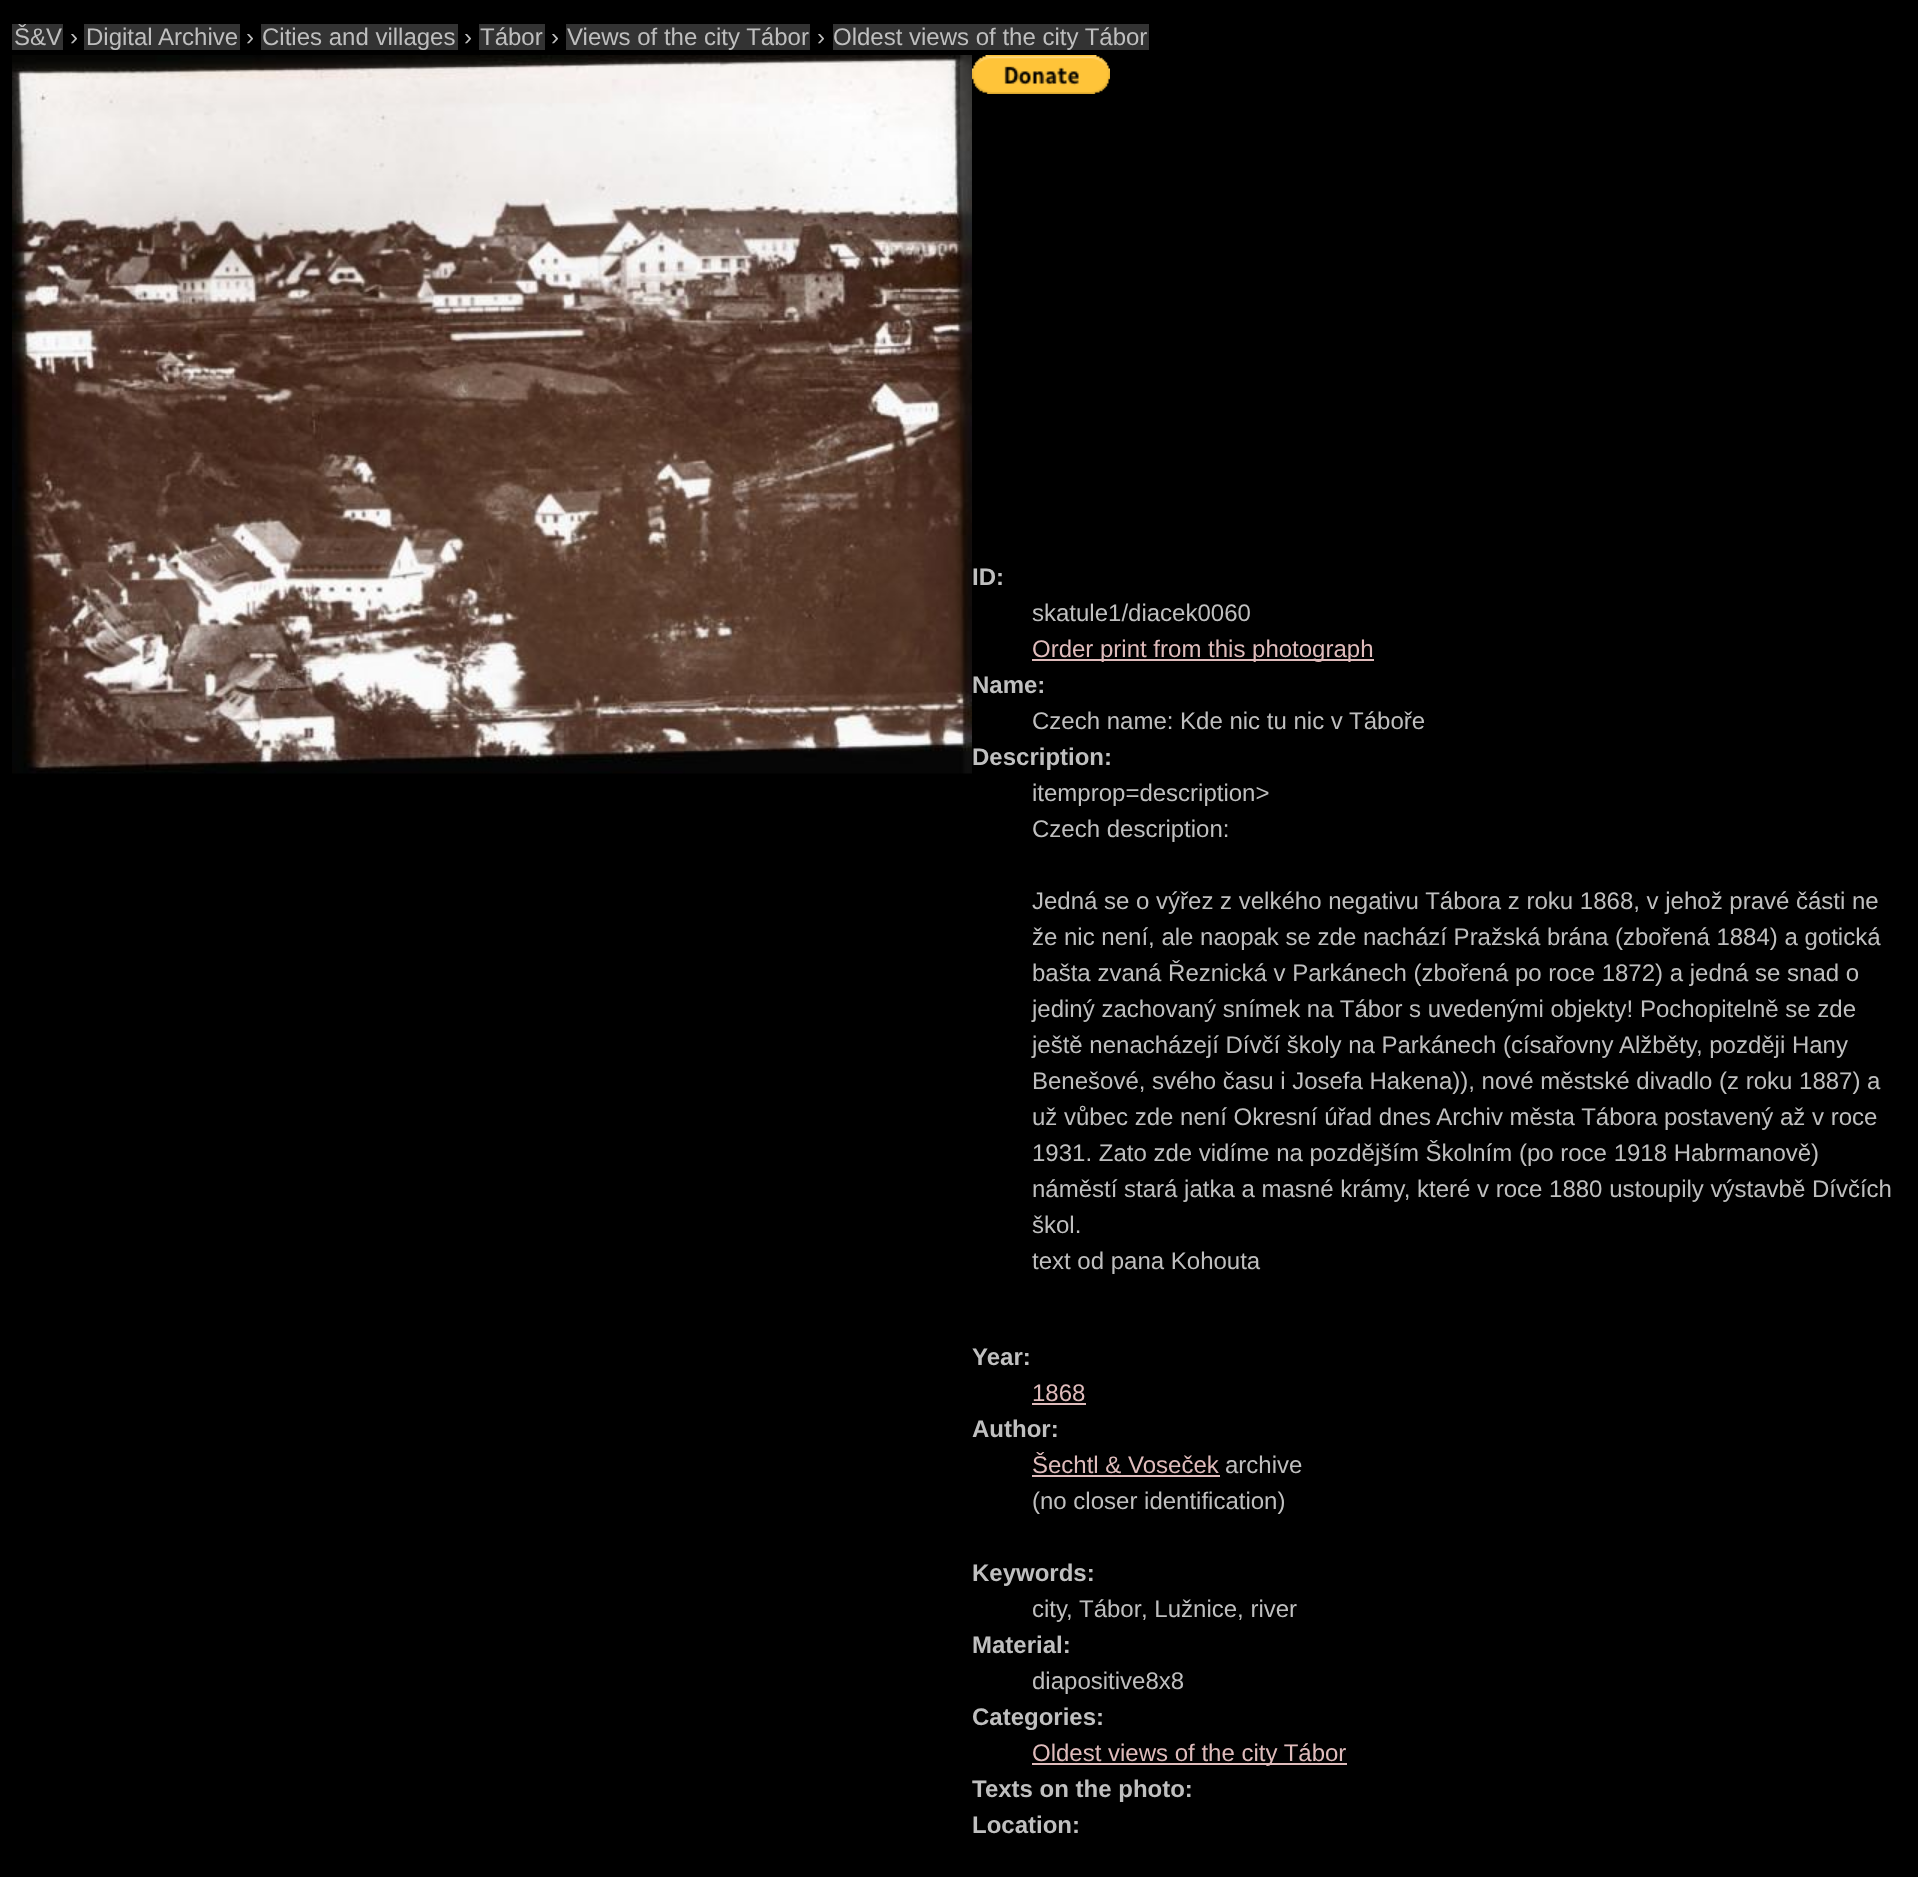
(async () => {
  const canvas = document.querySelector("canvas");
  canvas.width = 1918;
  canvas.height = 1877;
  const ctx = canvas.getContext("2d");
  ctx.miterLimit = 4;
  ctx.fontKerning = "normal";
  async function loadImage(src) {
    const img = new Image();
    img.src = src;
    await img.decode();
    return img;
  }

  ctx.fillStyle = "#000000";
  ctx.fillRect(0, 0, 1918, 1877);
  for (const [x, y, w, h, color] of [
    [12, 24, 51, 26, "#333333"],
    [84, 24, 156, 26, "#333333"],
    [261, 24, 197, 26, "#333333"],
    [479, 24, 66, 26, "#333333"],
    [566, 24, 244, 26, "#333333"],
    [833, 24, 316, 26, "#333333"],
  ]) {
    ctx.fillStyle = color;
    ctx.fillRect(x, y, w, h);
  }
  ctx.drawImage(await loadImage("img/1.png"), 12, 55, 960, 719);
  ctx.drawImage(await loadImage("img/2.png"), 972, 55, 138, 39);
  for (const [x, y, w, h, color] of [
    [1032, 659, 342, 2, "#dfbbbb"],
    [1032, 1403, 54, 2, "#dfbbbb"],
    [1032, 1475, 188, 2, "#dfbbbb"],
    [1032, 1763, 315, 2, "#dfbbbb"],
  ]) {
    ctx.fillStyle = color;
    ctx.fillRect(x, y, w, h);
  }
  ctx.font = "24px Liberation Sans";
  ctx.fillStyle = "#bfbfbf";
  for (const [text, x, y] of [
    ["Š&V", 14, 45],
    ["›", 70, 45],
    ["Digital Archive", 86, 45],
    ["›", 246, 45],
    ["Cities and villages", 262, 45],
    ["›", 464, 45],
    ["Tábor", 480, 45],
    ["›", 551, 45],
    ["Views of the city Tábor", 567, 45],
    ["›", 817, 45],
    ["Oldest views of the city Tábor", 833, 45],
  ]) {
    ctx.fillText(text, x, y);
  }
  ctx.font = "bold 24px Liberation Sans";
  ctx.fillText("ID:", 972, 585);
  ctx.font = "24px Liberation Sans";
  ctx.fillText("skatule1/diacek0060", 1032, 621);
  ctx.fillStyle = "#dfbbbb";
  ctx.fillText("Order print from this photograph", 1032, 657);
  ctx.font = "bold 24px Liberation Sans";
  ctx.fillStyle = "#bfbfbf";
  ctx.fillText("Name:", 972, 693);
  ctx.font = "24px Liberation Sans";
  ctx.fillText("Czech name: Kde nic tu nic v Táboře", 1032, 729);
  ctx.font = "bold 24px Liberation Sans";
  ctx.fillText("Description:", 972, 765);
  ctx.font = "24px Liberation Sans";
  for (const [text, x, y] of [
    ["itemprop=description>", 1032, 801],
    ["Czech description:", 1032, 837],
    ["Jedná se o výřez z velkého negativu Tábora z roku 1868, v jehož pravé části ne", 1032, 909],
    ["že nic není, ale naopak se zde nachází Pražská brána (zbořená 1884) a gotická", 1032, 945],
    ["bašta zvaná Řeznická v Parkánech (zbořená po roce 1872) a jedná se snad o", 1032, 981],
    ["jediný zachovaný snímek na Tábor s uvedenými objekty! Pochopitelně se zde", 1032, 1017],
    ["ještě nenacházejí Dívčí školy na Parkánech (císařovny Alžběty, později Hany", 1032, 1053],
    ["Benešové, svého času i Josefa Hakena)), nové městské divadlo (z roku 1887) a", 1032, 1089],
    ["už vůbec zde není Okresní úřad dnes Archiv města Tábora postavený až v roce", 1032, 1125],
    ["1931. Zato zde vidíme na pozdějším Školním (po roce 1918 Habrmanově)", 1032, 1161],
    ["náměstí stará jatka a masné krámy, které v roce 1880 ustoupily výstavbě Dívčích", 1032, 1197],
    ["škol.", 1032, 1233],
    ["text od pana Kohouta", 1032, 1269],
  ]) {
    ctx.fillText(text, x, y);
  }
  ctx.font = "bold 24px Liberation Sans";
  ctx.fillText("Year:", 972, 1365);
  ctx.font = "24px Liberation Sans";
  ctx.fillStyle = "#dfbbbb";
  ctx.fillText("1868", 1032, 1401);
  ctx.font = "bold 24px Liberation Sans";
  ctx.fillStyle = "#bfbfbf";
  ctx.fillText("Author:", 972, 1437);
  ctx.font = "24px Liberation Sans";
  ctx.fillStyle = "#dfbbbb";
  ctx.fillText("Šechtl & Voseček", 1032, 1473);
  ctx.fillStyle = "#bfbfbf";
  ctx.fillText("archive", 1225, 1473);
  ctx.fillText("(no closer identification)", 1032, 1509);
  ctx.font = "bold 24px Liberation Sans";
  ctx.fillText("Keywords:", 972, 1581);
  ctx.font = "24px Liberation Sans";
  for (const [text, x, y] of [
    ["city", 1032, 1617],
    [",", 1066, 1617],
    ["Tábor", 1079, 1617],
    [", Lužnice, river", 1141, 1617],
  ]) {
    ctx.fillText(text, x, y);
  }
  ctx.font = "bold 24px Liberation Sans";
  ctx.fillText("Material:", 972, 1653);
  ctx.font = "24px Liberation Sans";
  ctx.fillText("diapositive8x8", 1032, 1689);
  ctx.font = "bold 24px Liberation Sans";
  ctx.fillText("Categories:", 972, 1725);
  ctx.font = "24px Liberation Sans";
  ctx.fillStyle = "#dfbbbb";
  ctx.fillText("Oldest views of the city Tábor", 1032, 1761);
  ctx.font = "bold 24px Liberation Sans";
  ctx.fillStyle = "#bfbfbf";
  ctx.fillText("Texts on the photo:", 972, 1797);
  ctx.fillText("Location:", 972, 1833);
})();
